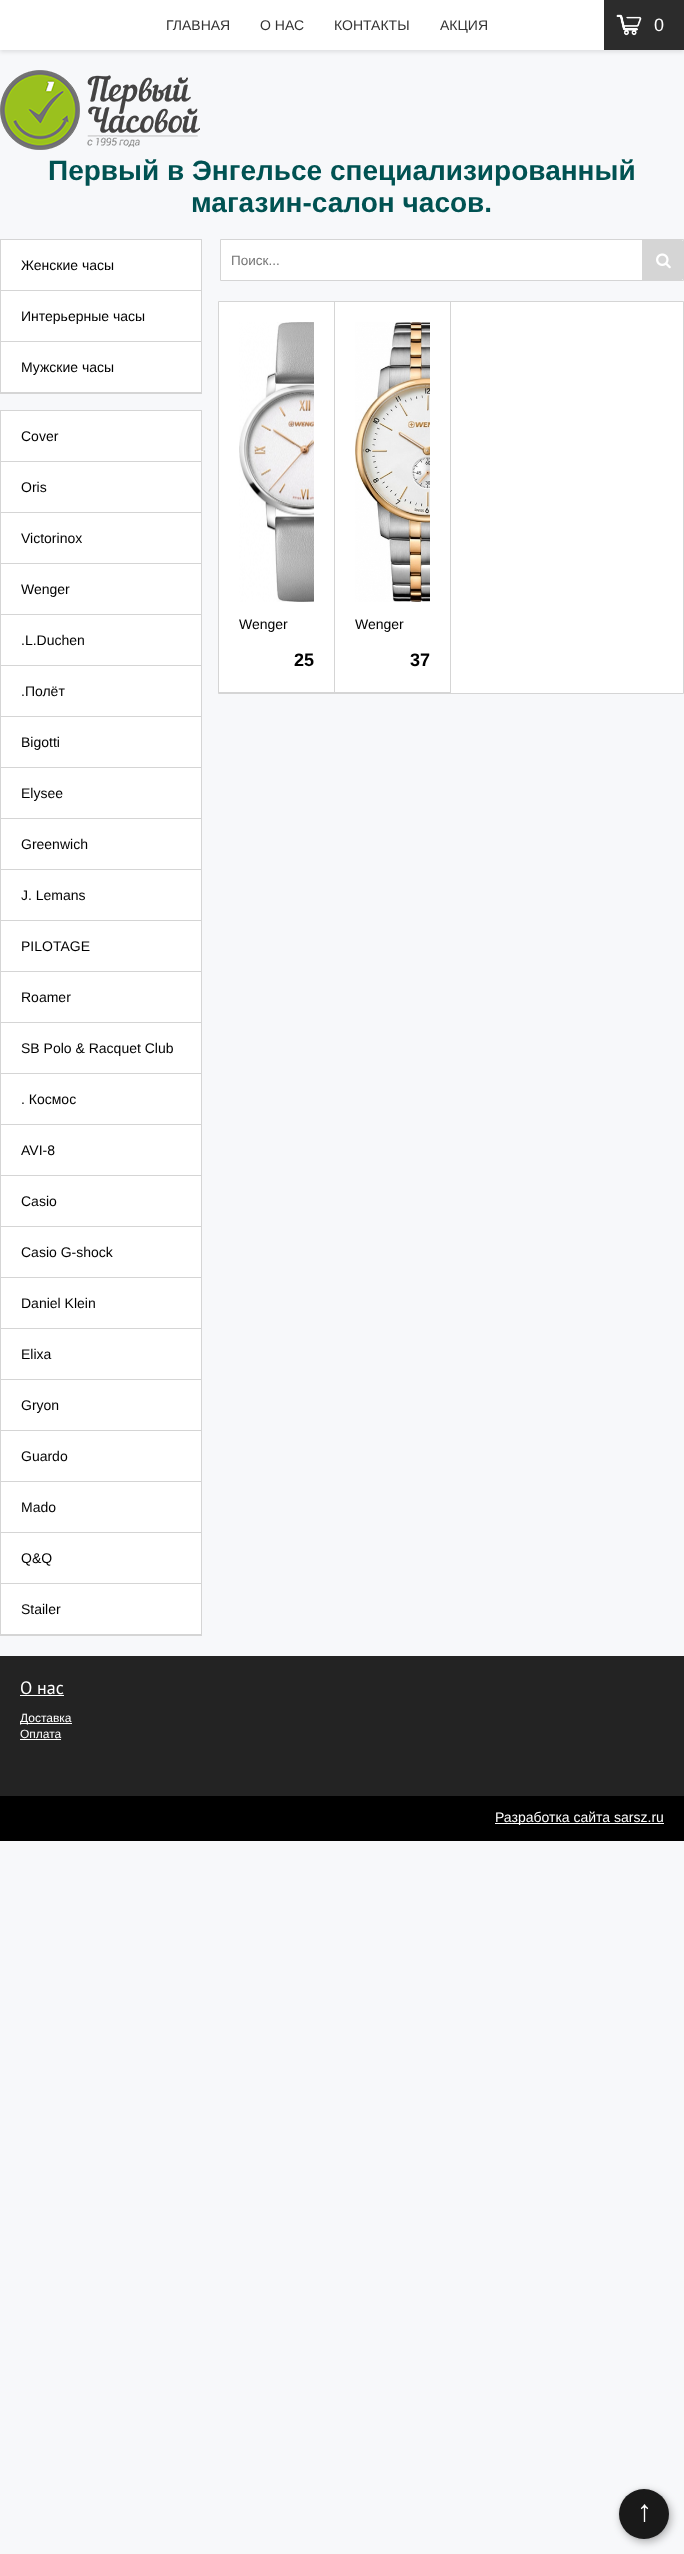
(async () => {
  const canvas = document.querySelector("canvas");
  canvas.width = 684;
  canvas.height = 2554;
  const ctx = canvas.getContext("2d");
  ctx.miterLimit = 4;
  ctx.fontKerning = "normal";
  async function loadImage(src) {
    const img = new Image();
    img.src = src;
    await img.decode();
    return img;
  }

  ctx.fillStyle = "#f7f8fa";
  ctx.fillRect(0, 0, 684, 2554);
  ctx.fillStyle = "rgba(0, 0, 0, 0.1)";
  ctx.filter = "blur(2px)";
  ctx.beginPath();
  ctx.rect(0, 2, 684, 50);
  ctx.fill();
  ctx.filter = "none";
  ctx.fillStyle = "#ffffff";
  ctx.fillRect(0, 0, 604, 50);
  ctx.fillStyle = "#2c2c2c";
  ctx.fillRect(604, 0, 80, 50);
  ctx.drawImage(await loadImage("img/1.png"), 616, 14, 26, 22);
  ctx.drawImage(await loadImage("img/2.png"), 0, 70, 200, 80);
  ctx.fillStyle = "#ffffff";
  ctx.fillRect(1, 240, 200, 152);
  ctx.strokeStyle = "#d5d5d5";
  ctx.strokeRect(0.5, 239.5, 201, 154);
  for (const [x, y, w, h, color] of [
    [1, 290, 200, 1, "#d5d5d5"],
    [1, 341, 200, 1, "#d5d5d5"],
    [1, 392, 200, 1, "#d5d5d5"],
    [1, 411, 200, 1223, "#ffffff"],
  ]) {
    ctx.fillStyle = color;
    ctx.fillRect(x, y, w, h);
  }
  ctx.strokeRect(0.5, 410.5, 201, 1225);
  for (const [x, y, w, h, color] of [
    [1, 461, 200, 1, "#d5d5d5"],
    [1, 512, 200, 1, "#d5d5d5"],
    [1, 563, 200, 1, "#d5d5d5"],
    [1, 614, 200, 1, "#d5d5d5"],
    [1, 665, 200, 1, "#d5d5d5"],
    [1, 716, 200, 1, "#d5d5d5"],
    [1, 767, 200, 1, "#d5d5d5"],
    [1, 818, 200, 1, "#d5d5d5"],
    [1, 869, 200, 1, "#d5d5d5"],
    [1, 920, 200, 1, "#d5d5d5"],
    [1, 971, 200, 1, "#d5d5d5"],
    [1, 1022, 200, 1, "#d5d5d5"],
    [1, 1073, 200, 1, "#d5d5d5"],
    [1, 1124, 200, 1, "#d5d5d5"],
    [1, 1175, 200, 1, "#d5d5d5"],
    [1, 1226, 200, 1, "#d5d5d5"],
    [1, 1277, 200, 1, "#d5d5d5"],
    [1, 1328, 200, 1, "#d5d5d5"],
    [1, 1379, 200, 1, "#d5d5d5"],
    [1, 1430, 200, 1, "#d5d5d5"],
    [1, 1481, 200, 1, "#d5d5d5"],
    [1, 1532, 200, 1, "#d5d5d5"],
    [1, 1583, 200, 1, "#d5d5d5"],
    [1, 1634, 200, 1, "#d5d5d5"],
  ]) {
    ctx.fillStyle = color;
    ctx.fillRect(x, y, w, h);
  }
  ctx.fillStyle = "#ffffff";
  ctx.beginPath();
  ctx.rect(220.5, 239.5, 463, 41);
  ctx.fill();
  ctx.stroke();
  ctx.fillStyle = "#d5d5d5";
  ctx.beginPath();
  ctx.roundRect(642, 239, 42, 42, [0, 5, 5, 0]);
  ctx.fill();
  ctx.drawImage(await loadImage("img/3.png"), 656, 253, 15, 16);
  ctx.fillStyle = "#ffffff";
  ctx.beginPath();
  ctx.rect(218.5, 301.5, 465, 392);
  ctx.fill();
  ctx.stroke();
  ctx.fillStyle = "#d5d5d5";
  ctx.fillRect(334, 302, 1, 391);
  ctx.fillRect(219, 692, 116, 1);
  ctx.drawImage(await loadImage("img/4.png"), 239, 322, 75, 280);
  ctx.fillRect(450, 302, 1, 391);
  ctx.fillRect(335, 692, 116, 1);
  ctx.drawImage(await loadImage("img/5.png"), 355, 322, 75, 280);
  for (const [x, y, w, h, color] of [
    [0, 1796, 684, 45, "#000000"],
    [0, 1656, 684, 140, "#232323"],
    [20, 1695, 44, 1, "#ffffff"],
    [20, 1723, 52, 1, "#ffffff"],
    [20, 1739, 41, 1, "#ffffff"],
    [495, 1823, 169, 1, "#ffffff"],
  ]) {
    ctx.fillStyle = color;
    ctx.fillRect(x, y, w, h);
  }
  ctx.fillStyle = "rgba(0, 0, 0, 0.3)";
  ctx.filter = "blur(4px)";
  ctx.beginPath();
  ctx.roundRect(621, 2492, 50, 50, 25);
  ctx.fill();
  ctx.filter = "none";
  ctx.fillStyle = "rgba(0, 0, 0, 0.12)";
  ctx.filter = "blur(1px)";
  ctx.beginPath();
  ctx.roundRect(619, 2489, 50, 50, 25);
  ctx.fill();
  ctx.filter = "none";
  ctx.fillStyle = "#191919";
  ctx.beginPath();
  ctx.arc(644, 2514, 25, 0, Math.PI * 2);
  ctx.fill();
  ctx.font = "14px Liberation Sans";
  ctx.fillStyle = "#333333";
  for (const [text, x, y] of [
    ["ГЛАВНАЯ", 166, 30],
    ["О НАС", 260, 30],
    ["КОНТАКТЫ", 334, 30],
    ["АКЦИЯ", 440, 30],
  ]) {
    ctx.fillText(text, x, y);
  }
  ctx.font = "18px Liberation Sans";
  ctx.fillStyle = "#ffffff";
  ctx.fillText("0", 654, 31);
  ctx.font = "bold 28px Liberation Sans";
  ctx.fillStyle = "#005252";
  ctx.fillText("Первый в Энгельсе специализированный", 48, 180);
  ctx.fillText("магазин-салон часов.", 191, 212);
  ctx.font = "14px Liberation Sans";
  ctx.fillStyle = "#000000";
  for (const [text, x, y] of [
    ["Женские часы", 21, 270],
    ["Интерьерные часы", 21, 321],
    ["Мужские часы", 21, 372],
    ["Cover", 21, 441],
    ["Oris", 21, 492],
    ["Victorinox", 21, 543],
    ["Wenger", 21, 594],
    [".L.Duchen", 21, 645],
    [".Полёт", 21, 696],
    ["Bigotti", 21, 747],
    ["Elysee", 21, 798],
    ["Greenwich", 21, 849],
    ["J. Lemans", 21, 900],
    ["PILOTAGE", 21, 951],
    ["Roamer", 21, 1002],
    ["SB Polo & Racquet Club", 21, 1053],
    [". Космос", 21, 1104],
    ["AVI-8", 21, 1155],
    ["Casio", 21, 1206],
    ["Casio G-shock", 21, 1257],
    ["Daniel Klein", 21, 1308],
    ["Elixa", 21, 1359],
    ["Gryon", 21, 1410],
    ["Guardo", 21, 1461],
    ["Mado", 21, 1512],
    ["Q&Q", 21, 1563],
    ["Stailer", 21, 1614],
  ]) {
    ctx.fillText(text, x, y);
  }
  ctx.font = "13.5px Liberation Sans";
  ctx.fillStyle = "#757575";
  ctx.fillText("Поиск...", 231, 265);
  ctx.font = "14px Liberation Sans";
  ctx.fillStyle = "#000000";
  ctx.fillText("Wenger", 239, 629);
  ctx.font = "bold 18px Liberation Sans";
  ctx.fillText("25", 294, 666);
  ctx.font = "14px Liberation Sans";
  ctx.fillText("Wenger", 355, 629);
  ctx.font = "bold 18px Liberation Sans";
  ctx.fillText("37", 410, 666);
  ctx.font = "18px PT Sans";
  ctx.fillStyle = "#ffffff";
  ctx.fillText("О нас", 20, 1694);
  ctx.font = "12px Liberation Sans";
  ctx.fillText("Доставка", 20, 1722);
  ctx.fillText("Оплата", 20, 1738);
  ctx.font = "14px Liberation Sans";
  ctx.fillText("Разработка сайта sarsz.ru", 495, 1822);
  ctx.font = "30px Liberation Serif";
  ctx.fillText("↑", 637, 2521);
})();
